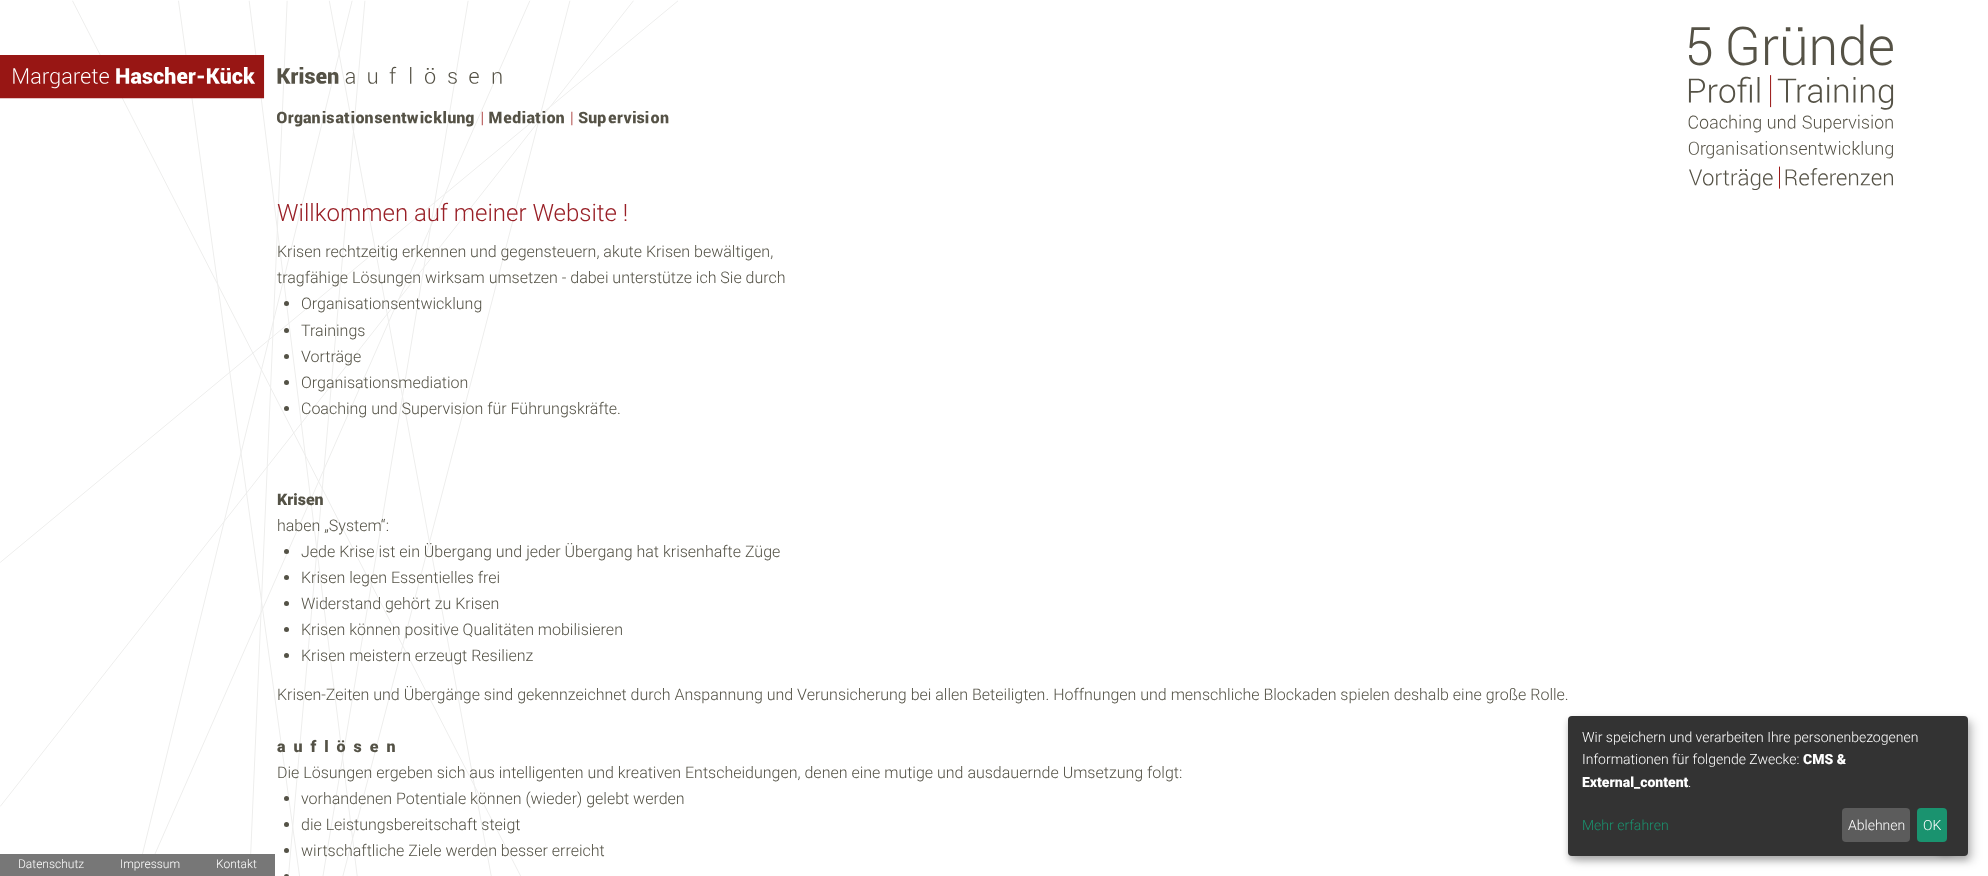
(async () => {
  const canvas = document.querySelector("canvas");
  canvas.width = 1988;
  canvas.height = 876;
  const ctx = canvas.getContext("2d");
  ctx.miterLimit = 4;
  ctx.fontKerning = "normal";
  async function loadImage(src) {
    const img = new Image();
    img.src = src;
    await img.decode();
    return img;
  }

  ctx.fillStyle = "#ffffff";
  ctx.fillRect(0, 0, 1988, 876);
  ctx.drawImage(await loadImage("img/1.png"), 0, 200, 521, 676);
  ctx.drawImage(await loadImage("img/2.png"), 72, 0, 606, 200);
  ctx.drawImage(await loadImage("img/3.png"), 0, 55, 669, 72);
  ctx.drawImage(await loadImage("img/4.png"), 1689, 24, 204, 42);
  ctx.drawImage(await loadImage("img/5.png"), 1688, 75, 83, 33);
  ctx.drawImage(await loadImage("img/6.png"), 1771, 75, 123, 35);
  ctx.drawImage(await loadImage("img/7.png"), 1688, 114, 205, 19);
  ctx.drawImage(await loadImage("img/8.png"), 1688, 141, 205, 18);
  ctx.drawImage(await loadImage("img/9.png"), 1689, 166, 91, 24);
  ctx.drawImage(await loadImage("img/10.png"), 1785, 168, 108, 18);
  ctx.fillStyle = "#545246";
  ctx.beginPath();
  ctx.arc(286.5, 303.5, 2.5, 0, Math.PI * 2);
  ctx.fill();
  ctx.beginPath();
  ctx.arc(286.5, 330.5, 2.5, 0, Math.PI * 2);
  ctx.fill();
  ctx.beginPath();
  ctx.arc(286.5, 356.5, 2.5, 0, Math.PI * 2);
  ctx.fill();
  ctx.beginPath();
  ctx.arc(286.5, 382.5, 2.5, 0, Math.PI * 2);
  ctx.fill();
  ctx.beginPath();
  ctx.arc(286.5, 408.5, 2.5, 0, Math.PI * 2);
  ctx.fill();
  ctx.beginPath();
  ctx.arc(286.5, 551.5, 2.5, 0, Math.PI * 2);
  ctx.fill();
  ctx.beginPath();
  ctx.arc(286.5, 577.5, 2.5, 0, Math.PI * 2);
  ctx.fill();
  ctx.beginPath();
  ctx.arc(286.5, 603.5, 2.5, 0, Math.PI * 2);
  ctx.fill();
  ctx.beginPath();
  ctx.arc(286.5, 629.5, 2.5, 0, Math.PI * 2);
  ctx.fill();
  ctx.beginPath();
  ctx.arc(286.5, 655.5, 2.5, 0, Math.PI * 2);
  ctx.fill();
  ctx.beginPath();
  ctx.arc(286.5, 798.5, 2.5, 0, Math.PI * 2);
  ctx.fill();
  ctx.beginPath();
  ctx.arc(286.5, 824.5, 2.5, 0, Math.PI * 2);
  ctx.fill();
  ctx.beginPath();
  ctx.arc(286.5, 850.5, 2.5, 0, Math.PI * 2);
  ctx.fill();
  ctx.beginPath();
  ctx.arc(286.5, 876.5, 2.5, 0, Math.PI * 2);
  ctx.fill();
  ctx.fillStyle = "#777777";
  ctx.fillRect(0, 854, 275, 22);
  ctx.fillStyle = "rgba(0, 0, 0, 0.19)";
  ctx.filter = "blur(5px)";
  ctx.beginPath();
  ctx.roundRect(1573, 721, 400, 140, 4);
  ctx.fill();
  ctx.filter = "none";
  ctx.fillStyle = "rgba(0, 0, 0, 0.2)";
  ctx.filter = "blur(3px)";
  ctx.beginPath();
  ctx.roundRect(1568, 720, 400, 140, 4);
  ctx.fill();
  ctx.filter = "none";
  ctx.filter = "blur(2.5px)";
  ctx.beginPath();
  ctx.roundRect(1928, 821, 35, 35, 17.5);
  ctx.fill();
  ctx.filter = "none";
  ctx.fillStyle = "#333333";
  ctx.beginPath();
  ctx.roundRect(1568, 716, 400, 140, 4);
  ctx.fill();
  ctx.fillStyle = "#5c5c5c";
  ctx.beginPath();
  ctx.roundRect(1842, 808, 68, 34, 4);
  ctx.fill();
  ctx.fillStyle = "#1a936f";
  ctx.beginPath();
  ctx.roundRect(1917, 808, 30, 34, 4);
  ctx.fill();
  ctx.font = "300 24px Roboto";
  ctx.fillStyle = "#992027";
  ctx.fillText("Willkommen auf meiner Website !", 277, 221);
  ctx.font = "300 16px Roboto";
  ctx.fillStyle = "#545246";
  for (const [text, x, y] of [
    ["Krisen rechtzeitig erkennen und gegensteuern, akute Krisen bewältigen,", 277, 257],
    ["tragfähige Lösungen wirksam umsetzen - dabei unterstütze ich Sie durch", 277, 283],
    ["Organisationsentwicklung", 301, 309],
    ["Trainings", 301, 336],
    ["Vorträge", 301, 362],
    ["Organisationsmediation", 301, 388],
    ["Coaching und Supervision für Führungskräfte.", 301, 414],
  ]) {
    ctx.fillText(text, x, y);
  }
  ctx.font = "900 16px Roboto";
  ctx.fillText("Krisen", 277, 505);
  ctx.font = "300 16px Roboto";
  for (const [text, x, y] of [
    ["haben „System“:", 277, 531],
    ["Jede Krise ist ein Übergang und jeder Übergang hat krisenhafte Züge", 301, 557],
    ["Krisen legen Essentielles frei", 301, 583],
    ["Widerstand gehört zu Krisen", 301, 609],
    ["Krisen können positive Qualitäten mobilisieren", 301, 635],
    ["Krisen meistern erzeugt Resilienz", 301, 661],
    ["Krisen-Zeiten und Übergänge sind gekennzeichnet durch Anspannung und Verunsicherung bei allen Beteiligten. Hoffnungen und menschliche Blockaden spielen deshalb eine große Rolle.", 277, 700],
  ]) {
    ctx.fillText(text, x, y);
  }
  ctx.font = "900 16px Roboto";
  ctx.fillText("a  u  f  l  ö  s  e  n", 277, 752);
  ctx.font = "300 16px Roboto";
  for (const [text, x, y] of [
    ["Die Lösungen ergeben sich aus intelligenten und kreativen Entscheidungen, denen eine mutige und ausdauernde Umsetzung folgt:", 277, 778],
    ["vorhandenen Potentiale können (wieder) gelebt werden", 301, 804],
    ["die Leistungsbereitschaft steigt", 301, 830],
    ["wirtschaftliche Ziele werden besser erreicht", 301, 856],
  ]) {
    ctx.fillText(text, x, y);
  }
  ctx.font = "300 12px Roboto";
  ctx.fillStyle = "#ffffff";
  for (const [text, x, y] of [
    ["Datenschutz", 18, 868],
    ["Impressum", 120, 868],
    ["Kontakt", 216, 868],
  ]) {
    ctx.fillText(text, x, y);
  }
  ctx.font = "300 14px Roboto";
  ctx.fillText("Wir speichern und verarbeiten Ihre personenbezogenen", 1582, 742);
  ctx.fillText("Informationen für folgende Zwecke:", 1582, 764);
  ctx.font = "900 14px Roboto";
  ctx.fillText("CMS &", 1803, 764);
  ctx.fillText("External_content", 1582, 787);
  ctx.font = "300 14px Roboto";
  ctx.fillText(".", 1688, 787);
  ctx.fillStyle = "#1a936f";
  ctx.fillText("Mehr erfahren", 1582, 830);
  ctx.fillStyle = "#ffffff";
  ctx.fillText("Ablehnen", 1848, 830);
  ctx.fillText("OK", 1923, 830);
})();
